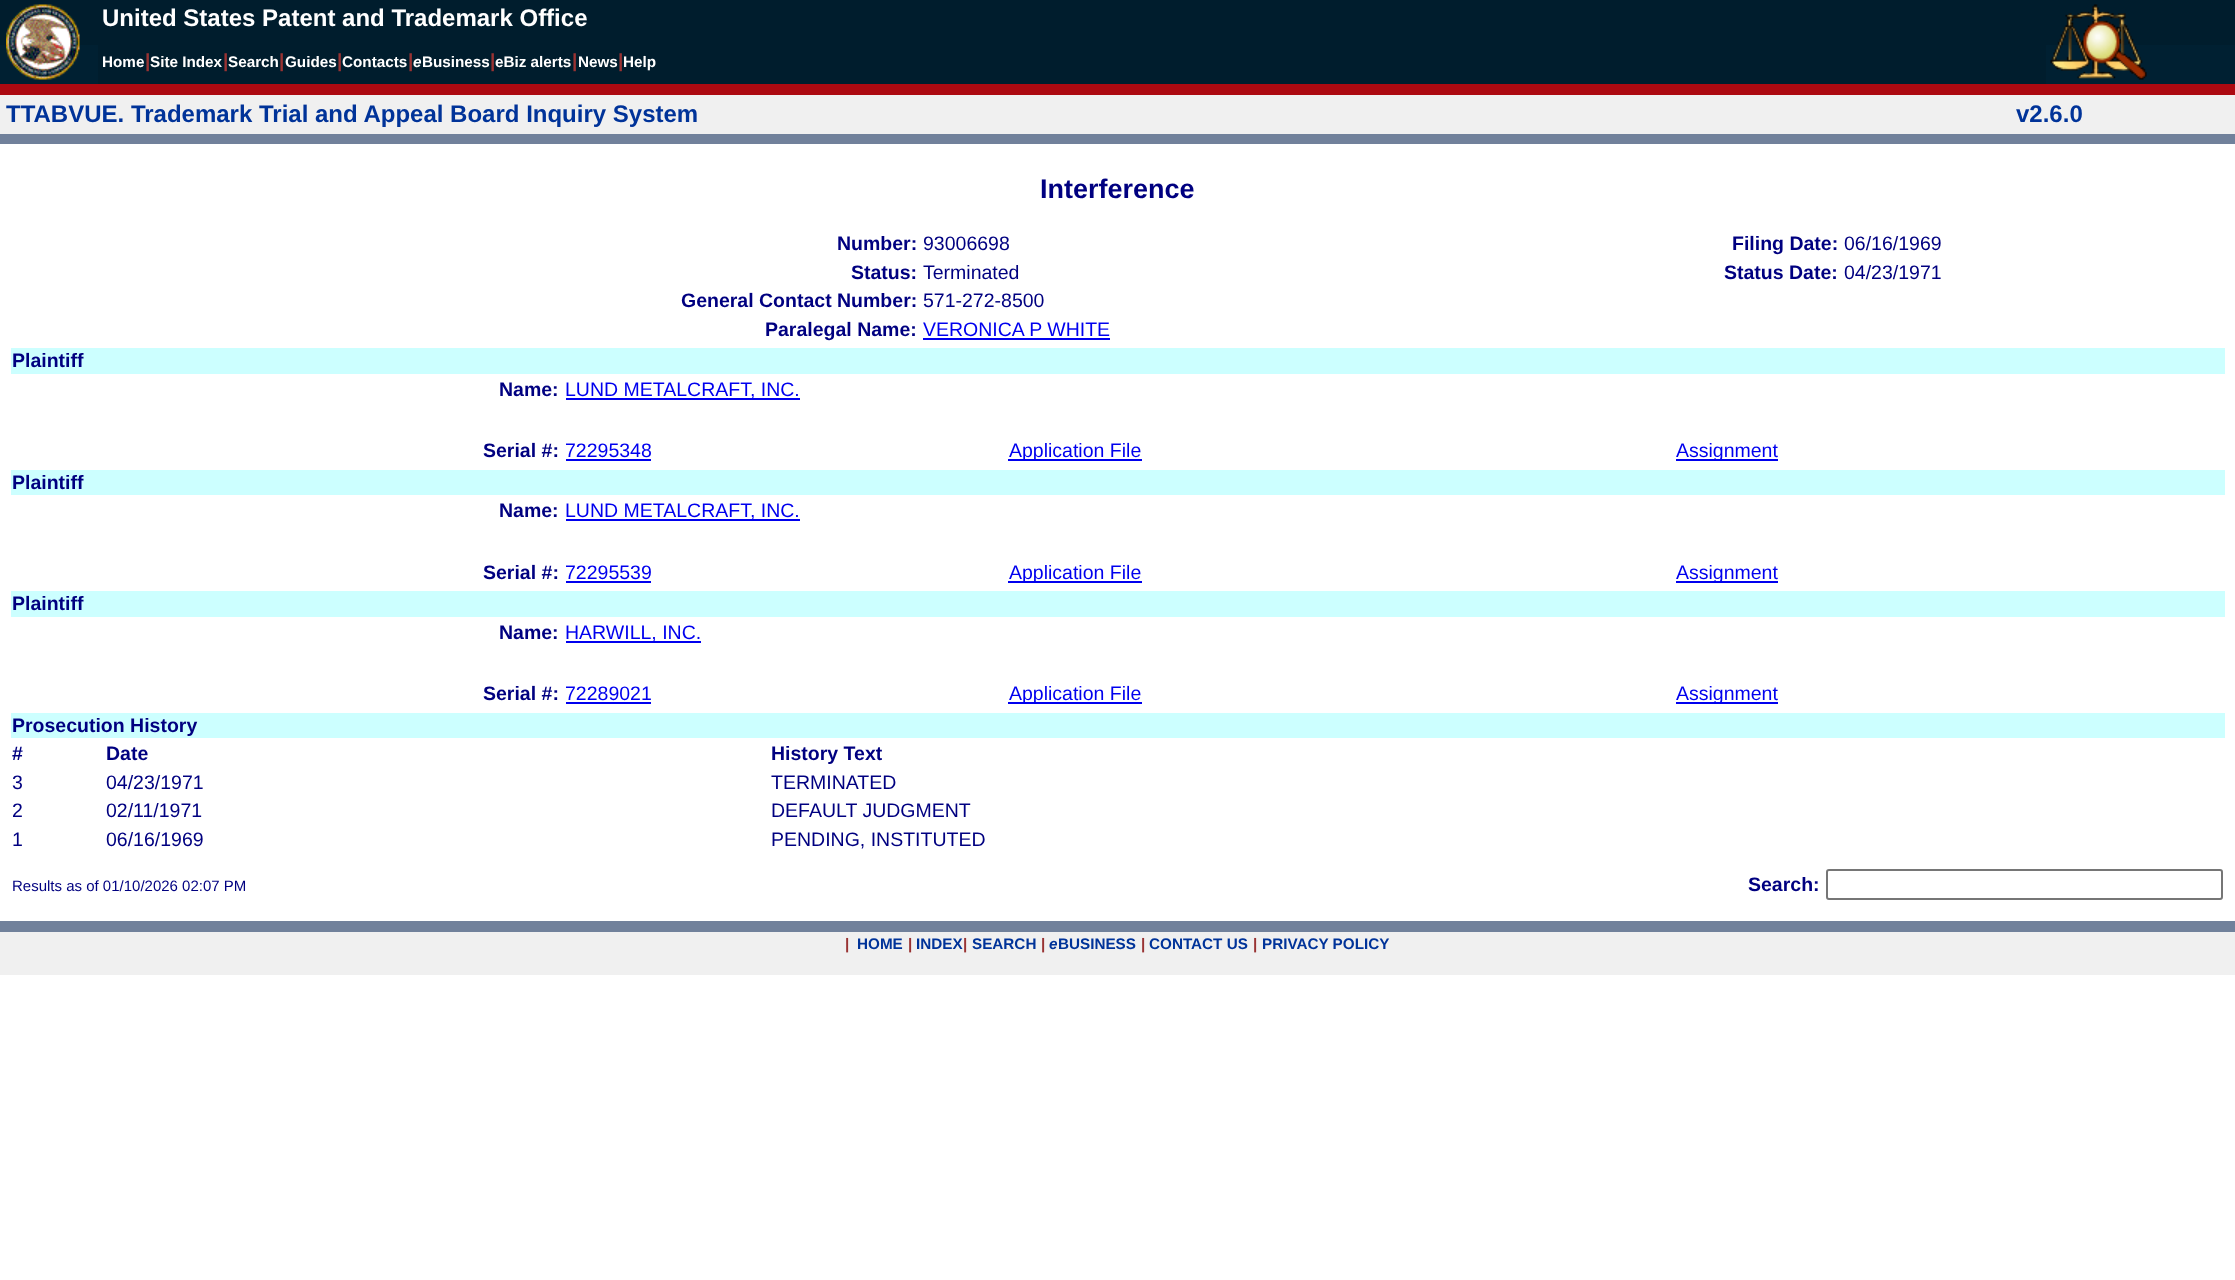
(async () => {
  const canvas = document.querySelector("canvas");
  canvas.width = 2235;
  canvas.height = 1280;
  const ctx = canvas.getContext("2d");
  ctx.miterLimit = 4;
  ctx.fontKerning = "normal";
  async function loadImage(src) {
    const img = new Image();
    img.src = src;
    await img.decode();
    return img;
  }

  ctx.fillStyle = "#ffffff";
  ctx.fillRect(0, 0, 2235, 1280);
  ctx.fillStyle = "#001d2d";
  ctx.fillRect(0, 0, 2235, 45);
  ctx.fillStyle = "#002032";
  ctx.fillRect(0, 45, 2235, 39);
  ctx.drawImage(await loadImage("img/1.png"), 6, 4, 74, 76);
  ctx.drawImage(await loadImage("img/2.png"), 2050, 4, 97, 76);
  for (const [x, y, w, h, color] of [
    [98, 45, 1948, 39, "#001d2d"],
    [0, 84, 2235, 11, "#ac0911"],
    [0, 95, 2235, 39, "#f0f0f0"],
    [0, 134, 2235, 10, "#71819b"],
    [923, 338, 187, 2, "#0000ee"],
    [11, 348, 2214, 26, "#ccffff"],
    [566, 398, 234, 2, "#0000ee"],
    [566, 459, 85, 2, "#0000ee"],
    [1008, 459, 134, 2, "#0000ee"],
    [1676, 459, 102, 2, "#0000ee"],
    [11, 470, 2214, 25, "#ccffff"],
    [566, 519, 234, 2, "#0000ee"],
    [566, 581, 85, 2, "#0000ee"],
    [1008, 581, 134, 2, "#0000ee"],
    [1676, 581, 102, 2, "#0000ee"],
    [11, 591, 2214, 26, "#ccffff"],
    [566, 641, 135, 2, "#0000ee"],
    [566, 702, 85, 2, "#0000ee"],
    [1008, 702, 134, 2, "#0000ee"],
    [1676, 702, 102, 2, "#0000ee"],
    [11, 713, 2214, 25, "#ccffff"],
  ]) {
    ctx.fillStyle = color;
    ctx.fillRect(x, y, w, h);
  }
  ctx.beginPath();
  ctx.roundRect(1827, 870, 395, 29, 2);
  ctx.strokeStyle = "#767676";
  ctx.lineWidth = 2;
  ctx.stroke();
  ctx.fillStyle = "#71819b";
  ctx.fillRect(0, 921, 2235, 11);
  ctx.fillStyle = "#f0f0f0";
  ctx.fillRect(0, 932, 2235, 43);
  ctx.font = "bold 24px Liberation Sans";
  ctx.fillStyle = "#ffffff";
  ctx.fillText("United States Patent and Trademark Office", 102, 26);
  ctx.font = "bold 15.25px Liberation Sans";
  ctx.fillText("Home", 102, 67);
  ctx.font = "bold 19px Liberation Sans";
  ctx.fillStyle = "#993333";
  ctx.fillText("|", 145, 67);
  ctx.font = "bold 15.25px Liberation Sans";
  ctx.fillStyle = "#ffffff";
  ctx.fillText("Site Index", 150, 67);
  ctx.font = "bold 19px Liberation Sans";
  ctx.fillStyle = "#993333";
  ctx.fillText("|", 223, 67);
  ctx.font = "bold 15.25px Liberation Sans";
  ctx.fillStyle = "#ffffff";
  ctx.fillText("Search", 228, 67);
  ctx.font = "bold 19px Liberation Sans";
  ctx.fillStyle = "#993333";
  ctx.fillText("|", 279, 67);
  ctx.font = "bold 15.25px Liberation Sans";
  ctx.fillStyle = "#ffffff";
  ctx.fillText("Guides", 285, 67);
  ctx.font = "bold 19px Liberation Sans";
  ctx.fillStyle = "#993333";
  ctx.fillText("|", 337, 67);
  ctx.font = "bold 15.25px Liberation Sans";
  ctx.fillStyle = "#ffffff";
  ctx.fillText("Contacts", 342, 67);
  ctx.font = "bold 19px Liberation Sans";
  ctx.fillStyle = "#993333";
  ctx.fillText("|", 408, 67);
  ctx.font = "italic bold 15.25px Liberation Sans";
  ctx.fillStyle = "#ffffff";
  ctx.fillText("e", 413, 67);
  ctx.font = "bold 15.25px Liberation Sans";
  ctx.fillText("Business", 422, 67);
  ctx.font = "bold 19px Liberation Sans";
  ctx.fillStyle = "#993333";
  ctx.fillText("|", 490, 67);
  ctx.font = "bold 15.25px Liberation Sans";
  ctx.fillStyle = "#ffffff";
  ctx.fillText("eBiz alerts", 495, 67);
  ctx.font = "bold 19px Liberation Sans";
  ctx.fillStyle = "#993333";
  ctx.fillText("|", 572, 67);
  ctx.font = "bold 15.25px Liberation Sans";
  ctx.fillStyle = "#ffffff";
  ctx.fillText("News", 578, 67);
  ctx.font = "bold 19px Liberation Sans";
  ctx.fillStyle = "#993333";
  ctx.fillText("|", 618, 67);
  ctx.font = "bold 15.25px Liberation Sans";
  ctx.fillStyle = "#ffffff";
  ctx.fillText("Help", 623, 67);
  ctx.font = "bold 24px Liberation Sans";
  ctx.fillStyle = "#003399";
  ctx.fillText("TTABVUE. Trademark Trial and Appeal Board Inquiry System", 6, 122);
  ctx.fillText("v2.6.0", 2016, 122);
  ctx.font = "bold 27px Liberation Sans";
  ctx.fillStyle = "#000080";
  ctx.fillText("Interference", 1040, 198);
  ctx.font = "bold 19.5px Liberation Sans";
  ctx.fillText("Number:", 837, 250);
  ctx.font = "19.5px Liberation Sans";
  ctx.fillText("93006698", 923, 250);
  ctx.font = "bold 19.5px Liberation Sans";
  ctx.fillText("Filing Date:", 1732, 250);
  ctx.font = "19.5px Liberation Sans";
  ctx.fillText("06/16/1969", 1844, 250);
  ctx.font = "bold 19.5px Liberation Sans";
  ctx.fillText("Status:", 851, 279);
  ctx.font = "19.5px Liberation Sans";
  ctx.fillText("Terminated", 923, 279);
  ctx.font = "bold 19.5px Liberation Sans";
  ctx.fillText("Status Date:", 1724, 279);
  ctx.font = "19.5px Liberation Sans";
  ctx.fillText("04/23/1971", 1844, 279);
  ctx.font = "bold 19.5px Liberation Sans";
  ctx.fillText("General Contact Number:", 681, 307);
  ctx.font = "19.5px Liberation Sans";
  ctx.fillText("571-272-8500", 923, 307);
  ctx.font = "bold 19.5px Liberation Sans";
  ctx.fillText("Paralegal Name:", 765, 336);
  ctx.font = "19.5px Liberation Sans";
  ctx.fillStyle = "#0000ee";
  ctx.fillText("VERONICA P WHITE", 923, 336);
  ctx.font = "bold 19.5px Liberation Sans";
  ctx.fillStyle = "#000080";
  ctx.fillText("Plaintiff", 12, 367);
  ctx.fillText("Name:", 499, 396);
  ctx.font = "19.5px Liberation Sans";
  ctx.fillStyle = "#0000ee";
  ctx.fillText("LUND METALCRAFT, INC.", 565, 396);
  ctx.font = "bold 19.5px Liberation Sans";
  ctx.fillStyle = "#000080";
  ctx.fillText("Serial #:", 483, 457);
  ctx.font = "19.5px Liberation Sans";
  ctx.fillStyle = "#0000ee";
  for (const [text, x, y] of [
    ["72295348", 565, 457],
    ["Application File", 1009, 457],
    ["Assignment", 1676, 457],
  ]) {
    ctx.fillText(text, x, y);
  }
  ctx.font = "bold 19.5px Liberation Sans";
  ctx.fillStyle = "#000080";
  ctx.fillText("Plaintiff", 12, 489);
  ctx.fillText("Name:", 499, 517);
  ctx.font = "19.5px Liberation Sans";
  ctx.fillStyle = "#0000ee";
  ctx.fillText("LUND METALCRAFT, INC.", 565, 517);
  ctx.font = "bold 19.5px Liberation Sans";
  ctx.fillStyle = "#000080";
  ctx.fillText("Serial #:", 483, 579);
  ctx.font = "19.5px Liberation Sans";
  ctx.fillStyle = "#0000ee";
  for (const [text, x, y] of [
    ["72295539", 565, 579],
    ["Application File", 1009, 579],
    ["Assignment", 1676, 579],
  ]) {
    ctx.fillText(text, x, y);
  }
  ctx.font = "bold 19.5px Liberation Sans";
  ctx.fillStyle = "#000080";
  ctx.fillText("Plaintiff", 12, 610);
  ctx.fillText("Name:", 499, 639);
  ctx.font = "19.5px Liberation Sans";
  ctx.fillStyle = "#0000ee";
  ctx.fillText("HARWILL, INC.", 565, 639);
  ctx.font = "bold 19.5px Liberation Sans";
  ctx.fillStyle = "#000080";
  ctx.fillText("Serial #:", 483, 700);
  ctx.font = "19.5px Liberation Sans";
  ctx.fillStyle = "#0000ee";
  for (const [text, x, y] of [
    ["72289021", 565, 700],
    ["Application File", 1009, 700],
    ["Assignment", 1676, 700],
  ]) {
    ctx.fillText(text, x, y);
  }
  ctx.font = "bold 19.5px Liberation Sans";
  ctx.fillStyle = "#000080";
  for (const [text, x, y] of [
    ["Prosecution History", 12, 732],
    ["#", 12, 760],
    ["Date", 106, 760],
    ["History Text", 771, 760],
  ]) {
    ctx.fillText(text, x, y);
  }
  ctx.font = "19.5px Liberation Sans";
  for (const [text, x, y] of [
    ["3", 12, 789],
    ["04/23/1971", 106, 789],
    ["TERMINATED", 771, 789],
    ["2", 12, 817],
    ["02/11/1971", 106, 817],
    ["DEFAULT JUDGMENT", 771, 817],
    ["1", 12, 846],
    ["06/16/1969", 106, 846],
    ["PENDING, INSTITUTED", 771, 846],
  ]) {
    ctx.fillText(text, x, y);
  }
  ctx.font = "15px Liberation Sans";
  ctx.fillText("Results as of 01/10/2026 02:07 PM", 12, 891);
  ctx.font = "bold 19.5px Liberation Sans";
  ctx.fillText("Search:", 1748, 891);
  ctx.font = "bold 15.25px Liberation Sans";
  ctx.fillStyle = "#993333";
  ctx.fillText("|", 845, 949);
  ctx.fillStyle = "#003399";
  ctx.fillText("HOME", 857, 949);
  ctx.fillStyle = "#993333";
  ctx.fillText("|", 908, 949);
  ctx.fillStyle = "#003399";
  ctx.fillText("INDEX", 916, 949);
  ctx.fillStyle = "#993333";
  ctx.fillText("|", 963, 949);
  ctx.fillStyle = "#003399";
  ctx.fillText("SEARCH", 972, 949);
  ctx.fillStyle = "#993333";
  ctx.fillText("|", 1041, 949);
  ctx.font = "italic bold 15.25px Liberation Sans";
  ctx.fillStyle = "#003399";
  ctx.fillText("e", 1049, 949);
  ctx.font = "bold 15.25px Liberation Sans";
  ctx.fillText("BUSINESS", 1058, 949);
  ctx.fillStyle = "#993333";
  ctx.fillText("|", 1141, 949);
  ctx.fillStyle = "#003399";
  ctx.fillText("CONTACT US", 1149, 949);
  ctx.fillStyle = "#993333";
  ctx.fillText("|", 1253, 949);
  ctx.fillStyle = "#003399";
  ctx.fillText("PRIVACY POLICY", 1262, 949);
})();
